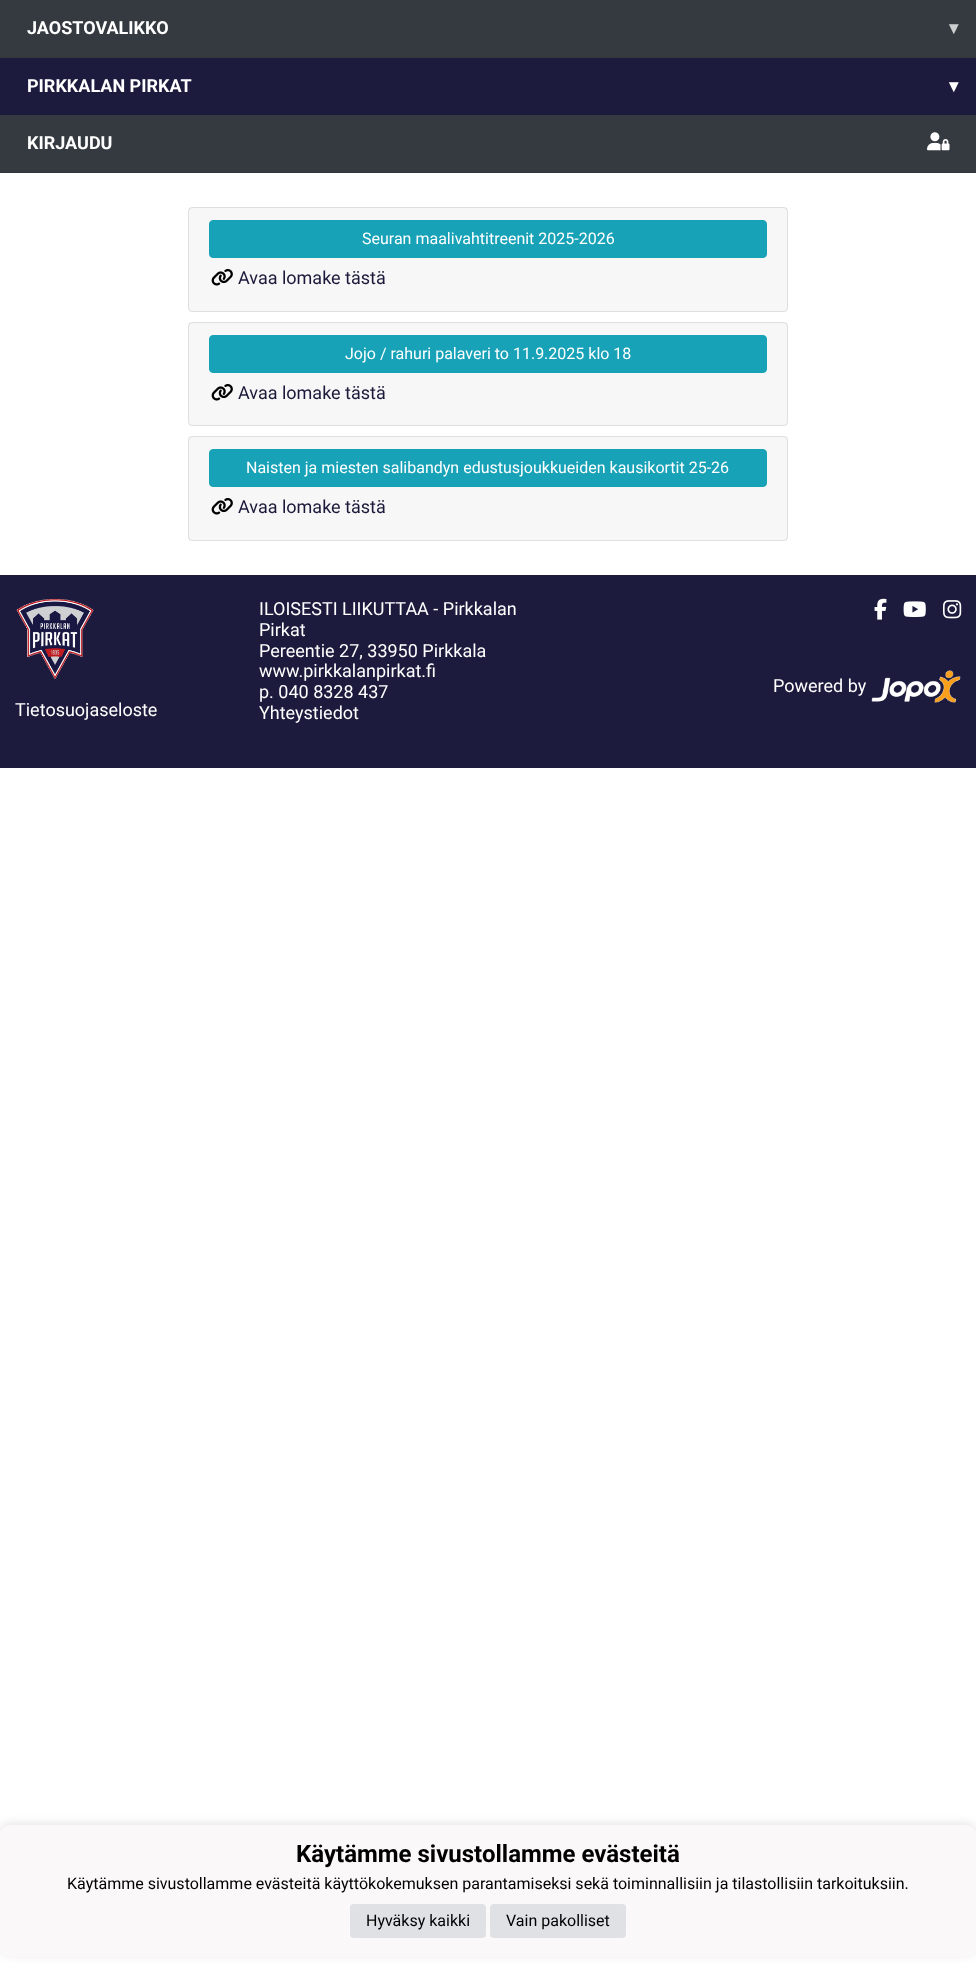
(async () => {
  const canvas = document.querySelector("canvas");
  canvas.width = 976;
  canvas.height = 1977;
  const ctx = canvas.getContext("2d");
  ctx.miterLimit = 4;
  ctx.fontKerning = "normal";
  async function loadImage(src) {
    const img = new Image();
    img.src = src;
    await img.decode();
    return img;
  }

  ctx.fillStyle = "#ffffff";
  ctx.fillRect(0, 0, 976, 1977);
  for (const [x, y, w, h, color] of [
    [0, 0, 976, 57, "#343a40"],
    [0, 57, 976, 1, "#31373d"],
    [0, 58, 976, 56, "#1c1a3d"],
    [0, 114, 976, 1, "#1b193a"],
    [0, 115, 976, 57, "#343a40"],
    [0, 172, 976, 1, "#31373d"],
  ]) {
    ctx.fillStyle = color;
    ctx.fillRect(x, y, w, h);
  }
  ctx.drawImage(await loadImage("img/1.png"), 927, 132, 23, 19);
  ctx.beginPath();
  ctx.roundRect(188.5, 207.5, 599, 104, 3.5);
  ctx.strokeStyle = "#dfdfdf";
  ctx.stroke();
  ctx.fillStyle = "rgba(0, 0, 0, 0.03)";
  ctx.fillRect(189, 208, 598, 103);
  ctx.fillStyle = "#17a2b8";
  ctx.beginPath();
  ctx.roundRect(209.5, 220.5, 557, 37, 3.5);
  ctx.fill();
  ctx.strokeStyle = "#17a2b8";
  ctx.stroke();
  ctx.drawImage(await loadImage("img/2.png"), 211, 269, 22, 17);
  ctx.beginPath();
  ctx.roundRect(188.5, 322.5, 599, 103, 3.5);
  ctx.strokeStyle = "#dfdfdf";
  ctx.stroke();
  ctx.fillStyle = "rgba(0, 0, 0, 0.03)";
  ctx.fillRect(189, 323, 598, 102);
  ctx.fillStyle = "#17a2b8";
  ctx.beginPath();
  ctx.roundRect(209.5, 335.5, 557, 37, 3.5);
  ctx.fill();
  ctx.strokeStyle = "#17a2b8";
  ctx.stroke();
  ctx.drawImage(await loadImage("img/2.png"), 211, 384, 22, 17);
  ctx.beginPath();
  ctx.roundRect(188.5, 436.5, 599, 104, 3.5);
  ctx.strokeStyle = "#dfdfdf";
  ctx.stroke();
  ctx.fillStyle = "rgba(0, 0, 0, 0.03)";
  ctx.fillRect(189, 437, 598, 103);
  ctx.fillStyle = "#17a2b8";
  ctx.beginPath();
  ctx.roundRect(209.5, 449.5, 557, 37, 3.5);
  ctx.fill();
  ctx.strokeStyle = "#17a2b8";
  ctx.stroke();
  ctx.drawImage(await loadImage("img/2.png"), 211, 498, 22, 17);
  ctx.fillStyle = "#1c1a3d";
  ctx.fillRect(0, 575, 976, 193);
  ctx.drawImage(await loadImage("img/3.png"), 874, 598, 13, 22);
  ctx.drawImage(await loadImage("img/4.png"), 903, 601, 23, 16);
  ctx.drawImage(await loadImage("img/5.png"), 943, 600, 19, 19);
  ctx.drawImage(await loadImage("img/6.png"), 871, 670, 90, 33);
  ctx.drawImage(await loadImage("img/7.png"), 16, 599, 78, 80);
  ctx.fillStyle = "rgba(0, 0, 0, 0.1)";
  ctx.filter = "blur(5px)";
  ctx.beginPath();
  ctx.roundRect(0, 1823, 976, 132, 10);
  ctx.fill();
  ctx.filter = "none";
  ctx.fillStyle = "#faf8f8";
  ctx.beginPath();
  ctx.roundRect(0, 1825, 976, 132, 10);
  ctx.fill();
  ctx.fillStyle = "#dfe1e5";
  ctx.beginPath();
  ctx.roundRect(350, 1904, 136, 34, 4);
  ctx.fill();
  ctx.beginPath();
  ctx.roundRect(490, 1904, 136, 34, 4);
  ctx.fill();
  ctx.font = "bold 18px Roboto";
  ctx.fillStyle = "#ffffff";
  ctx.fillText("JAOSTOVALIKKO", 27, 34);
  ctx.font = "bold 18px DejaVu Sans";
  ctx.fillStyle = "#cccecf";
  ctx.fillText("▾", 949, 34);
  ctx.font = "bold 18px Roboto";
  ctx.fillStyle = "#ffffff";
  ctx.fillText("PIRKKALAN PIRKAT", 27, 92);
  ctx.font = "bold 18px DejaVu Sans";
  ctx.fillText("▾", 949, 92);
  ctx.font = "bold 18px Roboto";
  ctx.fillText("KIRJAUDU", 27, 149);
  ctx.font = "16px Roboto";
  ctx.fillText("Seuran maalivahtitreenit 2025-2026", 362, 244);
  ctx.font = "18px Roboto";
  ctx.fillStyle = "#1b1839";
  ctx.fillText("Avaa lomake tästä", 238, 284);
  ctx.font = "16px Roboto";
  ctx.fillStyle = "#ffffff";
  ctx.fillText("Jojo / rahuri palaveri to 11.9.2025 klo 18", 345, 359);
  ctx.font = "18px Roboto";
  ctx.fillStyle = "#1b1839";
  ctx.fillText("Avaa lomake tästä", 238, 399);
  ctx.font = "16px Roboto";
  ctx.fillStyle = "#ffffff";
  ctx.fillText("Naisten ja miesten salibandyn edustusjoukkueiden kausikortit 25-26", 246, 473);
  ctx.font = "18px Roboto";
  ctx.fillStyle = "#1b1839";
  ctx.fillText("Avaa lomake tästä", 238, 513);
  ctx.fillStyle = "#ffffff";
  for (const [text, x, y] of [
    ["ILOISESTI LIIKUTTAA - Pirkkalan", 259, 615],
    ["Pirkat", 259, 636],
    ["Pereentie 27, 33950 Pirkkala", 259, 657],
    ["www.pirkkalanpirkat.fi", 259, 677],
    ["p. 040 8328 437", 259, 698],
    ["Yhteystiedot", 259, 719],
    ["Powered by", 773, 692],
    ["Tietosuojaseloste", 15, 716],
  ]) {
    ctx.fillText(text, x, y);
  }
  ctx.font = "bold 24px Roboto";
  ctx.fillStyle = "#000000";
  ctx.fillText("Käytämme sivustollamme evästeitä", 296, 1862);
  ctx.font = "16px Roboto";
  for (const [text, x, y] of [
    ["Käytämme sivustollamme evästeitä käyttökokemuksen parantamiseksi sekä toiminnallisiin ja tilastollisiin tarkoituksiin.", 67, 1889],
    ["Hyväksy kaikki", 366, 1926],
    ["Vain pakolliset", 506, 1926],
  ]) {
    ctx.fillText(text, x, y);
  }
})();
